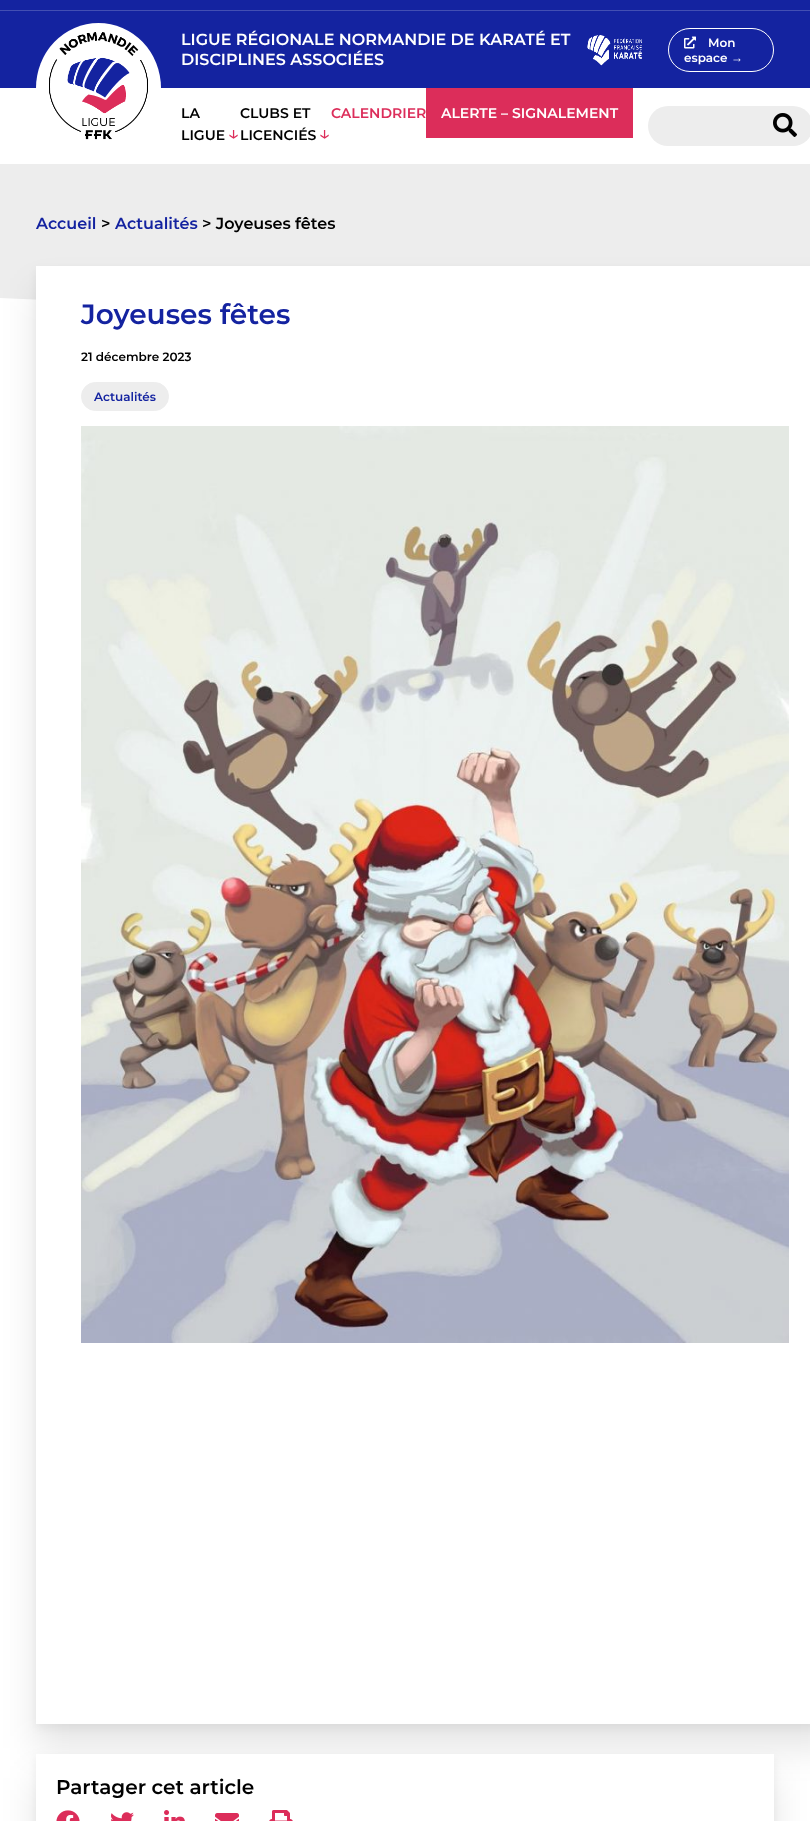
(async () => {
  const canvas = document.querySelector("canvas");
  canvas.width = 810;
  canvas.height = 1821;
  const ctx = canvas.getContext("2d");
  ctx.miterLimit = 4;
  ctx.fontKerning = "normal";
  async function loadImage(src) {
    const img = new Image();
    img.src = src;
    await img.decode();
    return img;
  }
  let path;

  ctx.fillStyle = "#ffffff";
  ctx.fillRect(0, 0, 810, 1821);
  ctx.fillStyle = "#ededed";
  path = new Path2D("M0-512L810-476V334L0 298Z");
  ctx.fill(path);
  for (const [x, y, w, h, color] of [
    [0, 0, 810, 88, "#1423a0"],
    [0, 10, 810, 1, "#434fb3"],
    [0, 88, 810, 76, "#ffffff"],
  ]) {
    ctx.fillStyle = color;
    ctx.fillRect(x, y, w, h);
  }
  ctx.beginPath();
  ctx.ellipse(98.5, 88, 62.5, 65, 0, 0, Math.PI * 2);
  ctx.fill();
  ctx.drawImage(await loadImage("img/1.png"), 49, 32, 99, 108);
  ctx.drawImage(await loadImage("img/2.png"), 587, 35, 55, 31);
  ctx.beginPath();
  ctx.roundRect(668.5, 28.5, 105, 43, 21.5);
  ctx.strokeStyle = "#ffffff";
  ctx.stroke();
  ctx.drawImage(await loadImage("img/3.png"), 684, 36, 12, 13);
  ctx.fillStyle = "#dc2d5a";
  ctx.fillRect(426, 88, 207, 50);
  ctx.fillStyle = "#ededed";
  ctx.beginPath();
  ctx.roundRect(648, 106, 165, 40, 20);
  ctx.fill();
  ctx.drawImage(await loadImage("img/4.png"), 773, 113, 24, 24);
  ctx.fillStyle = "rgba(0, 0, 0, 0.1)";
  ctx.filter = "blur(17.5px)";
  ctx.beginPath();
  ctx.rect(36, 290, 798, 1458);
  ctx.fill();
  ctx.filter = "none";
  ctx.fillStyle = "rgba(0, 0, 0, 0.05)";
  ctx.filter = "blur(4px)";
  ctx.beginPath();
  ctx.rect(36, 270, 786, 1458);
  ctx.fill();
  ctx.filter = "none";
  ctx.fillStyle = "#ffffff";
  ctx.fillRect(36, 266, 774, 1458);
  ctx.fillStyle = "#ededed";
  ctx.beginPath();
  ctx.roundRect(81.5, 382.5, 87, 28, 14);
  ctx.fill();
  ctx.strokeStyle = "#ededed";
  ctx.stroke();
  ctx.drawImage(await loadImage("img/5.png"), 81, 426, 708, 917);
  ctx.fillStyle = "rgba(0, 0, 0, 0.1)";
  ctx.filter = "blur(17.5px)";
  ctx.beginPath();
  ctx.rect(36, 1778, 738, 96);
  ctx.fill();
  ctx.filter = "none";
  ctx.fillStyle = "rgba(0, 0, 0, 0.05)";
  ctx.filter = "blur(4px)";
  ctx.beginPath();
  ctx.rect(36, 1758, 738, 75);
  ctx.fill();
  ctx.filter = "none";
  ctx.fillStyle = "#ffffff";
  ctx.fillRect(36, 1754, 738, 67);
  ctx.drawImage(await loadImage("img/6.png"), 56, 1810, 24, 11);
  ctx.drawImage(await loadImage("img/7.png"), 111, 1812, 23, 9);
  ctx.drawImage(await loadImage("img/8.png"), 164, 1810, 21, 11);
  ctx.drawImage(await loadImage("img/9.png"), 215, 1813, 24, 8);
  ctx.drawImage(await loadImage("img/10.png"), 269, 1810, 24, 11);
  ctx.font = "600 16px Montserrat";
  ctx.fillText("LIGUE RÉGIONALE NORMANDIE DE KARATÉ ET", 181, 45);
  ctx.fillText("DISCIPLINES ASSOCIÉES", 181, 65);
  ctx.font = "600 12px Montserrat";
  ctx.fillText("Mon", 708, 47);
  ctx.fillText("espace", 684, 62);
  ctx.font = "bold 12px Liberation Sans";
  ctx.fillText("→", 731, 62);
  ctx.font = "600 14px Montserrat";
  ctx.fillStyle = "#000000";
  ctx.fillText("LA", 181, 118);
  ctx.fillText("LIGUE", 181, 140);
  ctx.font = "21px Montserrat";
  ctx.fillStyle = "#dc2d5a";
  ctx.fillText("↓", 227, 140);
  ctx.font = "600 14px Montserrat";
  ctx.fillStyle = "#000000";
  ctx.fillText("CLUBS ET", 240, 118);
  ctx.fillText("LICENCIÉS", 240, 140);
  ctx.font = "21px Montserrat";
  ctx.fillStyle = "#dc2d5a";
  ctx.fillText("↓", 318, 140);
  ctx.font = "600 14px Montserrat";
  ctx.fillText("CALENDRIER", 331, 118);
  ctx.fillStyle = "#ffffff";
  ctx.fillText("ALERTE – SIGNALEMENT", 441, 118);
  ctx.font = "600 16px Montserrat";
  ctx.fillStyle = "#1423a0";
  ctx.fillText("Accueil", 36, 229);
  ctx.fillStyle = "#000000";
  ctx.fillText(">", 101, 229);
  ctx.fillStyle = "#1423a0";
  ctx.fillText("Actualités", 115, 229);
  ctx.fillStyle = "#000000";
  ctx.fillText("> Joyeuses fêtes", 202, 229);
  ctx.font = "600 28px Montserrat";
  ctx.fillStyle = "#1423a0";
  ctx.fillText("Joyeuses fêtes", 81, 324);
  ctx.font = "600 12px Montserrat";
  ctx.fillStyle = "#000000";
  ctx.fillText("21 décembre 2023", 81, 361);
  ctx.fillStyle = "#1423a0";
  ctx.fillText("Actualités", 94, 401);
  ctx.font = "600 20px Montserrat";
  ctx.fillStyle = "#000000";
  ctx.fillText("Partager cet article", 56, 1794);
})();
